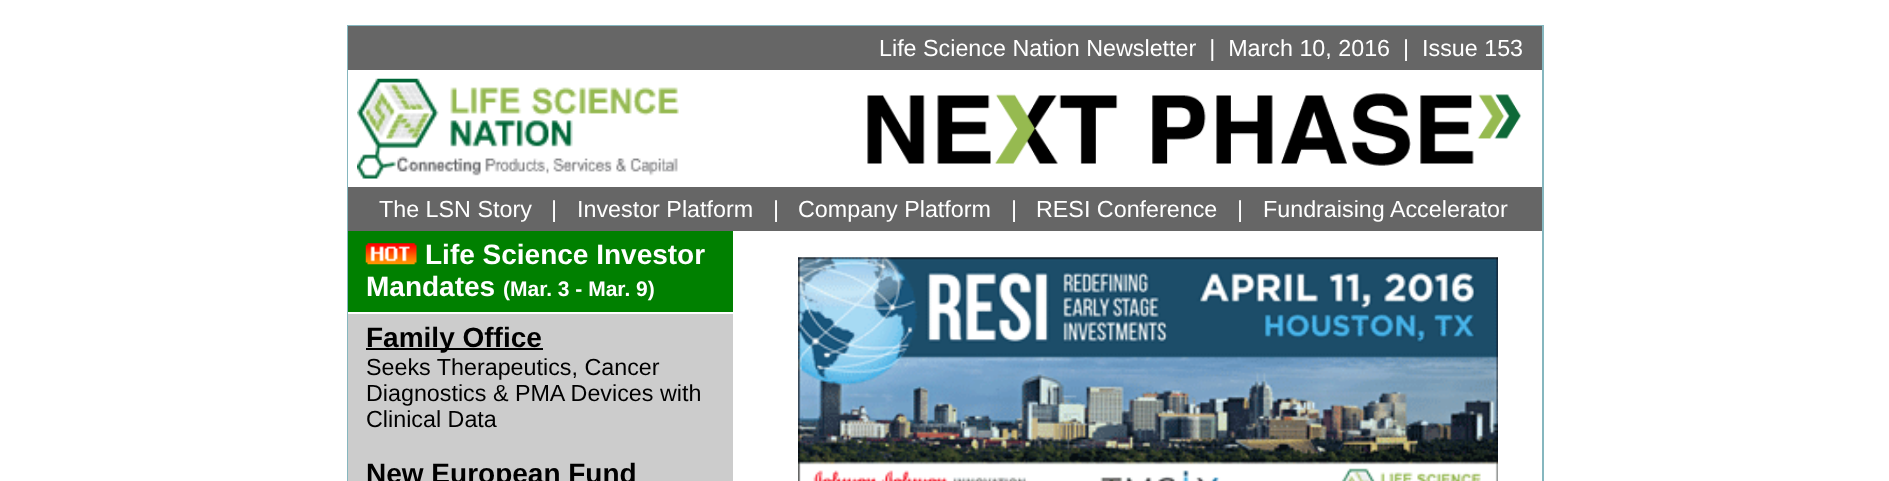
(async () => {
  const canvas = document.querySelector("canvas");
  canvas.width = 1889;
  canvas.height = 481;
  const ctx = canvas.getContext("2d");
  ctx.miterLimit = 4;
  ctx.fontKerning = "normal";
  async function loadImage(src) {
    const img = new Image();
    img.src = src;
    await img.decode();
    return img;
  }

  ctx.fillStyle = "#ffffff";
  ctx.fillRect(0, 0, 1889, 481);
  for (const [x, y, w, h, color] of [
    [347, 25, 1197, 456, "#86b7bf"],
    [348, 70, 1194, 411, "#ffffff"],
    [348, 26, 1194, 44, "#666666"],
  ]) {
    ctx.fillStyle = color;
    ctx.fillRect(x, y, w, h);
  }
  ctx.drawImage(await loadImage("img/1.png"), 357, 78, 322, 101);
  ctx.drawImage(await loadImage("img/2.png"), 867, 93, 655, 73);
  for (const [x, y, w, h, color] of [
    [348, 187, 1194, 44, "#666666"],
    [348, 314, 385, 167, "#cccccc"],
    [348, 231, 385, 81, "#008000"],
  ]) {
    ctx.fillStyle = color;
    ctx.fillRect(x, y, w, h);
  }
  ctx.drawImage(await loadImage("img/3.png"), 365, 243, 52, 22);
  ctx.fillStyle = "#000000";
  ctx.fillRect(366, 348, 177, 2);
  ctx.drawImage(await loadImage("img/4.png"), 798, 257, 700, 224);
  ctx.font = "23.3px Liberation Sans";
  ctx.fillStyle = "#ffffff";
  for (const [text, x, y] of [
    ["Life Science Nation Newsletter  |  March 10, 2016  |  Issue 153", 879, 56],
    ["The LSN Story", 379, 217],
    ["|", 551, 217],
    ["Investor Platform", 577, 217],
    ["|", 773, 217],
    ["Company Platform", 798, 217],
    ["|", 1011, 217],
    ["RESI Conference", 1036, 217],
    ["|", 1237, 217],
    ["Fundraising Accelerator", 1263, 217],
  ]) {
    ctx.fillText(text, x, y);
  }
  ctx.font = "bold 28px Liberation Sans";
  ctx.fillText("Life Science Investor", 425, 264);
  ctx.fillText("Mandates", 366, 296);
  ctx.font = "bold 21px Liberation Sans";
  ctx.fillText("(Mar. 3 - Mar. 9)", 503, 296);
  ctx.font = "bold 28px Liberation Sans";
  ctx.fillStyle = "#000000";
  ctx.fillText("Family Office", 366, 347);
  ctx.font = "23.3px Liberation Sans";
  for (const [text, x, y] of [
    ["Seeks Therapeutics, Cancer", 366, 375],
    ["Diagnostics & PMA Devices with", 366, 401],
    ["Clinical Data", 366, 427],
  ]) {
    ctx.fillText(text, x, y);
  }
  ctx.font = "bold 28px Liberation Sans";
  ctx.fillText("New European Fund", 366, 483);
})();
